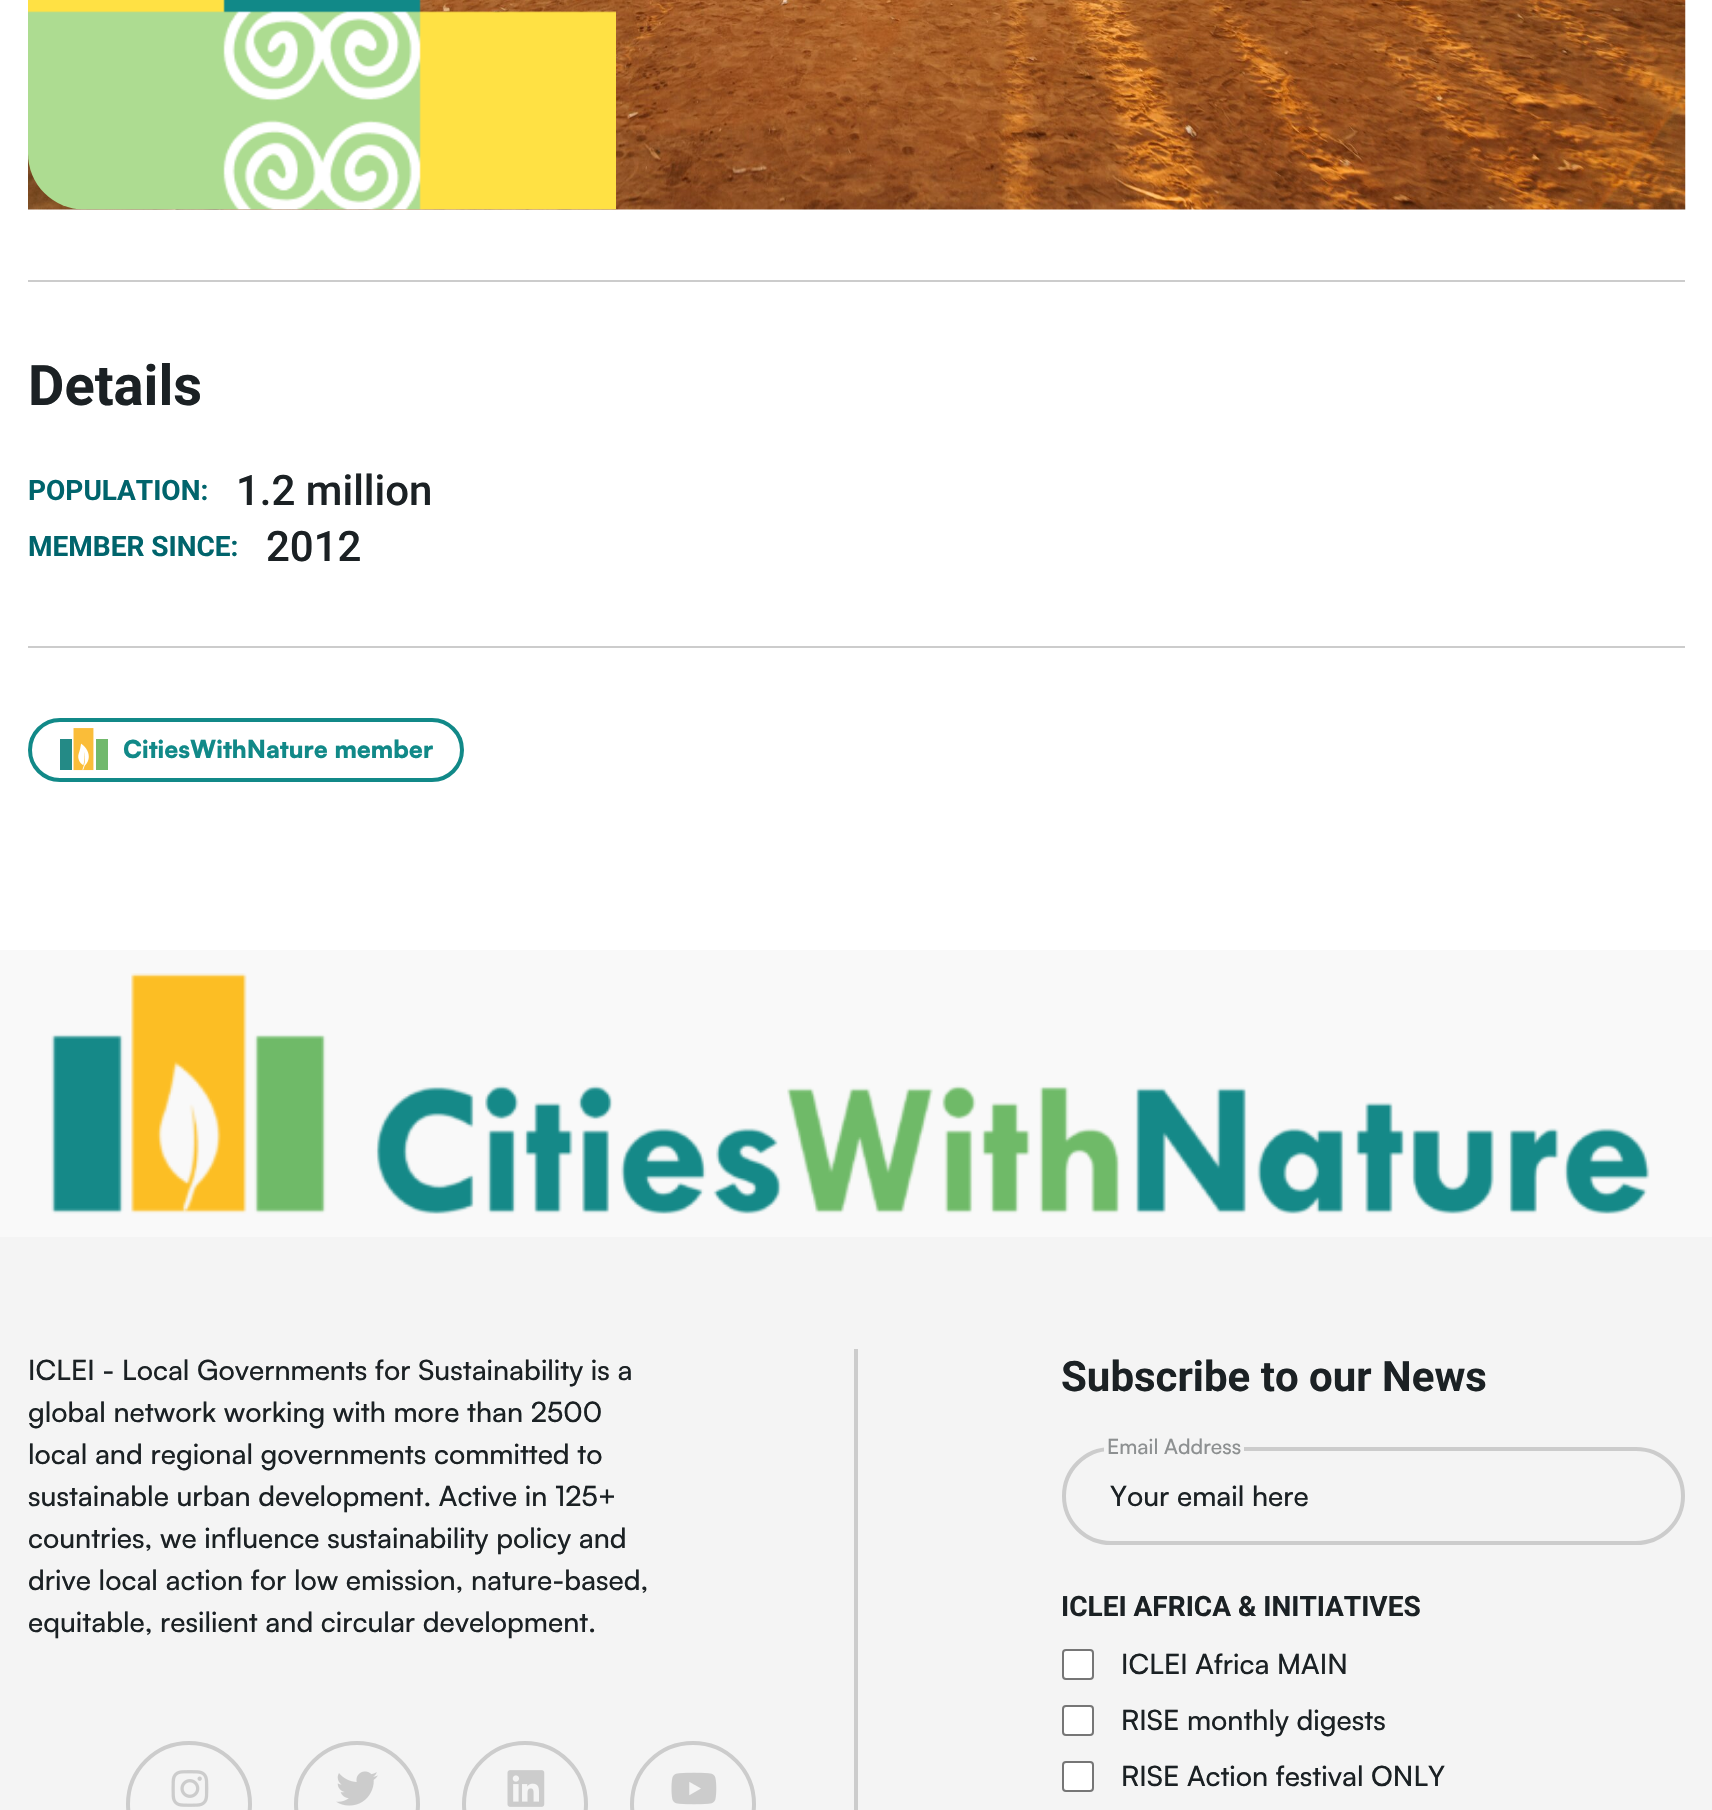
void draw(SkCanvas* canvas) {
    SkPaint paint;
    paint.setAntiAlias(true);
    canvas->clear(0xFFF9F9F9);
    paint.setColor(0xFFFFFFFF);
    canvas->drawRect(SkRect::MakeXYWH(0, 0, 1712, 950), paint);
    canvas->drawImageRect(SkImages::DeferredFromEncodedData(SkData::MakeFromFileName("img1.png")), SkRect::MakeXYWH(28, 0, 1658, 210), SkSamplingOptions());
    canvas->drawImageRect(SkImages::DeferredFromEncodedData(SkData::MakeFromFileName("img2.png")), SkRect::MakeXYWH(28, 0, 588, 210), SkSamplingOptions());
    paint.setColor(0xFFCCCCCC);
    canvas->drawRect(SkRect::MakeXYWH(28, 280, 1657, 2), paint);
    SkFont font1(fontMgr->matchFamilyStyle("Roboto", SkFontStyle::Bold()), 56);
    font1.setSubpixel(true);
    paint.setColor(0xFF1B2124);
    canvas->drawString("Details", 28, 405, font1, paint);
    SkFont font2(fontMgr->matchFamilyStyle("Roboto", SkFontStyle::Bold()), 28);
    font2.setSubpixel(true);
    paint.setColor(0xFF00646C);
    canvas->drawString("POPULATION:", 28, 500, font2, paint);
    SkFont font3(fontMgr->matchFamilyStyle("Roboto", SkFontStyle(500, SkFontStyle::kNormal_Width, SkFontStyle::kUpright_Slant)), 42);
    font3.setSubpixel(true);
    paint.setColor(0xFF1B2124);
    canvas->drawString("1.2 million", 236, 505, font3, paint);
    paint.setColor(0xFF00646C);
    canvas->drawString("MEMBER SINCE:", 28, 556, font2, paint);
    paint.setColor(0xFF1B2124);
    canvas->drawString("2012", 266, 561, font3, paint);
    paint.setColor(0xFFCCCCCC);
    canvas->drawRect(SkRect::MakeXYWH(28, 646, 1657, 2), paint);
    paint.setStyle(SkPaint::kStroke_Style);
    paint.setStrokeWidth(4);
    paint.setColor(0xFF118988);
    canvas->drawRoundRect(SkRect::MakeXYWH(30, 720, 432, 60), 30, 30, paint);
    canvas->drawImageRect(SkImages::DeferredFromEncodedData(SkData::MakeFromFileName("img3.png")), SkRect::MakeXYWH(60, 728, 48, 43), SkSamplingOptions());
    SkFont font4(fontMgr->matchFamilyStyle("Satoshi", SkFontStyle(900, SkFontStyle::kNormal_Width, SkFontStyle::kUpright_Slant)), 24.5f);
    font4.setSubpixel(true);
    paint.setStyle(SkPaint::kFill_Style);
    canvas->drawString("CitiesWithNature member", 123, 758, font4, paint);
    canvas->drawImageRect(SkImages::DeferredFromEncodedData(SkData::MakeFromFileName("img4.png")), SkRect::MakeXYWH(51, 973, 1599, 241), SkSamplingOptions());
    paint.setColor(0xFFF4F4F4);
    canvas->drawRect(SkRect::MakeXYWH(0, 1237, 1712, 573), paint);
    paint.setColor(0xFFCCCCCC);
    canvas->drawRect(SkRect::MakeXYWH(854, 1349, 4, 461), paint);
    SkFont font5(fontMgr->matchFamilyStyle("Satoshi", SkFontStyle(500, SkFontStyle::kNormal_Width, SkFontStyle::kUpright_Slant)), 28);
    font5.setSubpixel(true);
    paint.setColor(0xFF1B2124);
    canvas->drawString("ICLEI - Local Governments for Sustainability is a", 28, 1380, font5, paint);
    canvas->drawString("global network working with more than 2500", 28, 1422, font5, paint);
    canvas->drawString("local and regional governments committed to", 28, 1464, font5, paint);
    canvas->drawString("sustainable urban development. Active in 125+", 28, 1506, font5, paint);
    canvas->drawString("countries, we influence sustainability policy and", 28, 1548, font5, paint);
    canvas->drawString("drive local action for low emission, nature-based,", 28, 1590, font5, paint);
    canvas->drawString("equitable, resilient and circular development.", 28, 1632, font5, paint);
    paint.setStyle(SkPaint::kStroke_Style);
    paint.setColor(0xFFCCCCCC);
    canvas->drawCircle(189, 1804, 61, paint);
    canvas->drawImageRect(SkImages::DeferredFromEncodedData(SkData::MakeFromFileName("img5.png")), SkRect::MakeXYWH(171, 1770, 38, 37), SkSamplingOptions());
    canvas->drawCircle(357, 1804, 61, paint);
    canvas->drawImageRect(SkImages::DeferredFromEncodedData(SkData::MakeFromFileName("img6.png")), SkRect::MakeXYWH(336, 1771, 42, 35), SkSamplingOptions());
    canvas->drawCircle(525, 1804, 61, paint);
    canvas->drawImageRect(SkImages::DeferredFromEncodedData(SkData::MakeFromFileName("img7.png")), SkRect::MakeXYWH(507, 1770, 38, 37), SkSamplingOptions());
    canvas->drawCircle(693, 1804, 61, paint);
    canvas->drawImageRect(SkImages::DeferredFromEncodedData(SkData::MakeFromFileName("img8.png")), SkRect::MakeXYWH(671, 1772, 46, 33), SkSamplingOptions());
    SkFont font6(fontMgr->matchFamilyStyle("Roboto", SkFontStyle::Bold()), 42);
    font6.setSubpixel(true);
    paint.setStyle(SkPaint::kFill_Style);
    paint.setColor(0xFF1B2124);
    canvas->drawString("Subscribe to our News", 1061, 1391, font6, paint);
    paint.setStyle(SkPaint::kStroke_Style);
    paint.setColor(0xFFCCCCCC);
    canvas->drawRoundRect(SkRect::MakeXYWH(1064, 1449, 619, 94), 47, 47, paint);
    paint.setStyle(SkPaint::kFill_Style);
    paint.setColor(0xFFF4F4F4);
    canvas->drawRect(SkRect::MakeXYWH(1104, 1447, 140, 5), paint);
    SkFont font7(fontMgr->matchFamilyStyle("Satoshi", SkFontStyle(500, SkFontStyle::kNormal_Width, SkFontStyle::kUpright_Slant)), 21);
    font7.setSubpixel(true);
    paint.setColor(0xFF8D9091);
    canvas->drawString("Email Address", 1107, 1454, font7, paint);
    paint.setColor(0xFF1B2124);
    canvas->drawString("Your email here", 1110, 1506, font5, paint);
    canvas->drawString("ICLEI AFRICA & INITIATIVES", 1061, 1616, font2, paint);
    paint.setColor(0xFFFFFFFF);
    canvas->drawRoundRect(SkRect::MakeXYWH(1063, 1650, 30, 29), 3, 3, paint);
    paint.setStyle(SkPaint::kStroke_Style);
    paint.setStrokeWidth(2);
    paint.setColor(0xFF767676);
    canvas->drawRoundRect(SkRect::MakeXYWH(1063, 1650, 30, 29), 3, 3, paint);
    paint.setStyle(SkPaint::kFill_Style);
    paint.setColor(0xFF1B2124);
    canvas->drawString("ICLEI Africa MAIN", 1121, 1674, font5, paint);
    paint.setColor(0xFFFFFFFF);
    canvas->drawRoundRect(SkRect::MakeXYWH(1063, 1706, 30, 29), 3, 3, paint);
    paint.setStyle(SkPaint::kStroke_Style);
    paint.setColor(0xFF767676);
    canvas->drawRoundRect(SkRect::MakeXYWH(1063, 1706, 30, 29), 3, 3, paint);
    paint.setStyle(SkPaint::kFill_Style);
    paint.setColor(0xFF1B2124);
    canvas->drawString("RISE monthly digests", 1121, 1730, font5, paint);
    paint.setColor(0xFFFFFFFF);
    canvas->drawRoundRect(SkRect::MakeXYWH(1063, 1762, 30, 29), 3, 3, paint);
    paint.setStyle(SkPaint::kStroke_Style);
    paint.setColor(0xFF767676);
    canvas->drawRoundRect(SkRect::MakeXYWH(1063, 1762, 30, 29), 3, 3, paint);
    paint.setStyle(SkPaint::kFill_Style);
    paint.setColor(0xFF1B2124);
    canvas->drawString("RISE Action festival ONLY", 1121, 1786, font5, paint);
}
